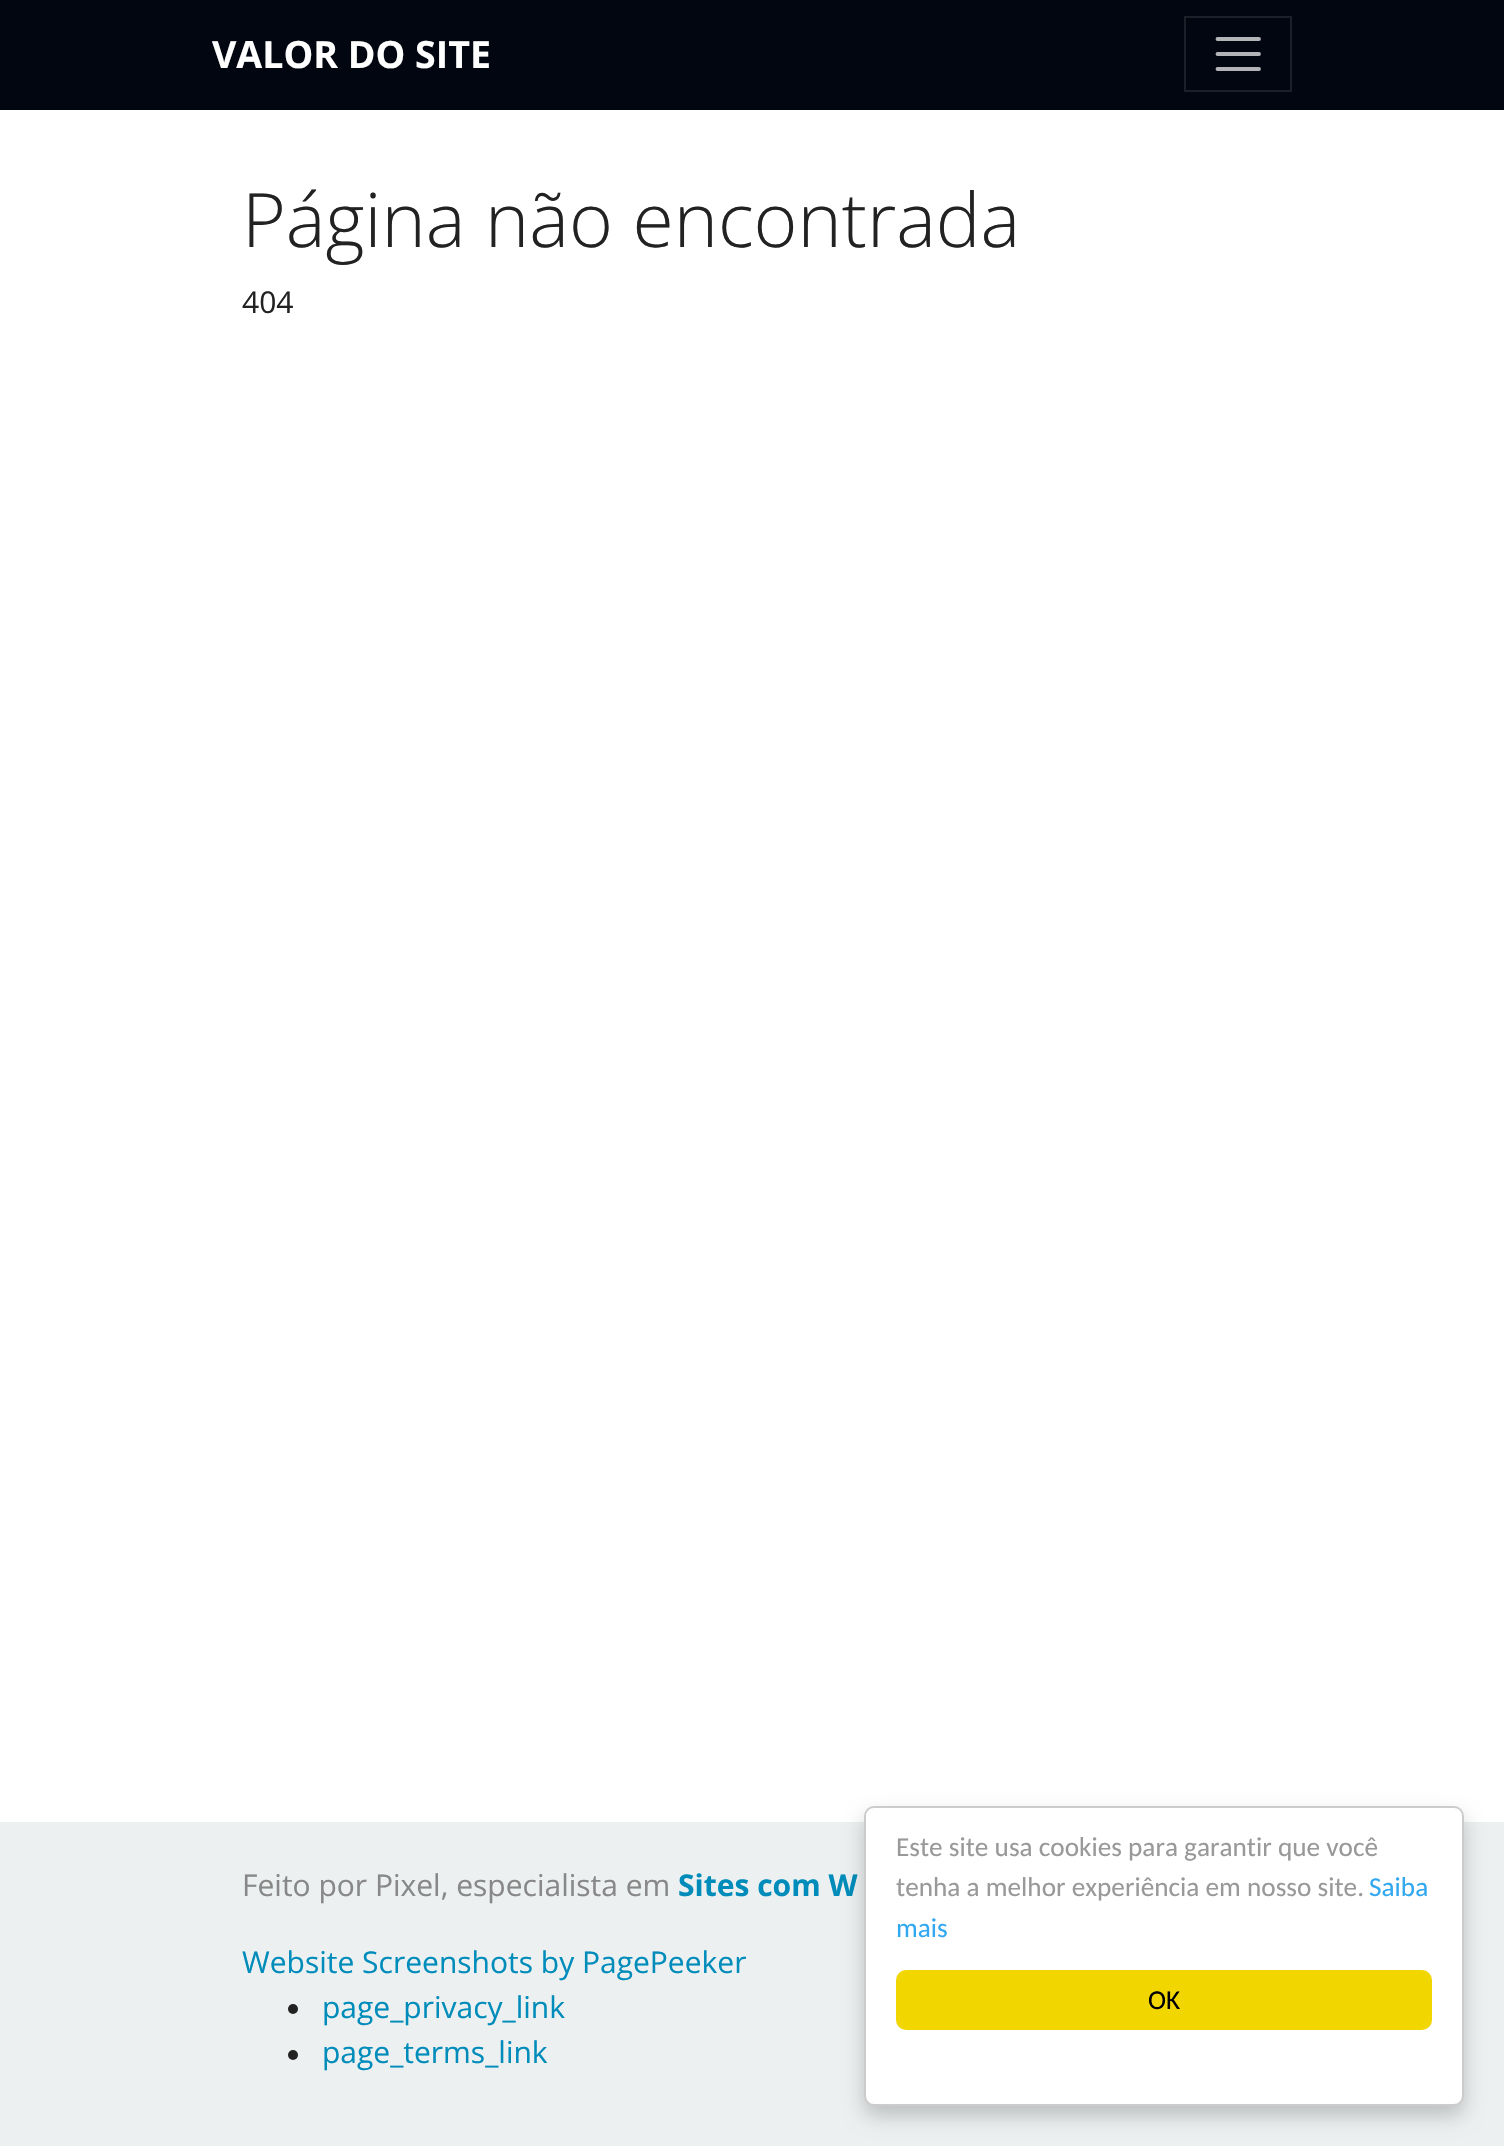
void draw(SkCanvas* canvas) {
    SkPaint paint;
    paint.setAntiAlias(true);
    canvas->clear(0xFFFFFFFF);
    paint.setColor(0xFF010610);
    canvas->drawRect(SkRect::MakeXYWH(0, 0, 1504, 110), paint);
    SkFont font1(fontMgr->matchFamilyStyle("Open Sans", SkFontStyle::Bold()), 37.5f);
    font1.setSubpixel(true);
    paint.setColor(0xFFFFFFFF);
    canvas->drawString("VALOR DO SITE", 212, 68, font1, paint);
    paint.setStyle(SkPaint::kStroke_Style);
    paint.setStrokeWidth(2);
    paint.setColor(0xFF1A1F28);
    canvas->drawRect(SkRect::MakeXYWH(1185, 17, 106, 74), paint);
    paint.setStrokeWidth(3.8f);
    paint.setStrokeCap(SkPaint::kRound_Cap);
    paint.setColor(0xFFB3B4B7);
    canvas->drawPath(SkPathBuilder().moveTo(1217.5f, 39).lineTo(1259, 39).moveTo(1217.5f, 54).lineTo(1259, 54).moveTo(1217.5f, 69).lineTo(1259, 69).detach(), paint);
    SkFont font2(fontMgr->matchFamilyStyle("Open Sans", SkFontStyle(300, SkFontStyle::kNormal_Width, SkFontStyle::kUpright_Slant)), 75);
    font2.setSubpixel(true);
    paint.setStyle(SkPaint::kFill_Style);
    paint.setColor(0xFF222222);
    canvas->drawString("Página não encontrada", 242, 247, font2, paint);
    SkFont font3(fontMgr->matchFamilyStyle("Open Sans", SkFontStyle::Normal()), 30);
    font3.setSubpixel(true);
    canvas->drawString("404", 242, 313, font3, paint);
    paint.setColor(0xFFECF0F1);
    canvas->drawRect(SkRect::MakeXYWH(0, 1822, 1504, 324), paint);
    paint.setColor(0xFF888888);
    canvas->drawString("Feito por Pixel, especialista em", 242, 1896, font3, paint);
    SkFont font4(fontMgr->matchFamilyStyle("Open Sans", SkFontStyle::Bold()), 30);
    font4.setSubpixel(true);
    paint.setColor(0xFF008CBA);
    canvas->drawString("Sites com W", 678, 1896, font4, paint);
    canvas->drawString("Website Screenshots by PagePeeker", 242, 1973, font3, paint);
    paint.setColor(0xFF222222);
    canvas->drawCircle(293, 2009, 5, paint);
    paint.setColor(0xFF008CBA);
    canvas->drawString("page_privacy_link", 322, 2018, font3, paint);
    paint.setColor(0xFF222222);
    canvas->drawCircle(293, 2055, 5, paint);
    paint.setColor(0xFF008CBA);
    canvas->drawString("page_terms_link", 322, 2063, font3, paint);
    paint.setColor(0x33000000);
    paint.setMaskFilter(SkMaskFilter::MakeBlur(kNormal_SkBlurStyle, 10));
    canvas->drawRoundRect(SkRect::MakeXYWH(864, 1816, 600, 300), 10, 10, paint);
    paint.setMaskFilter(nullptr);
    paint.setColor(0xFFFFFFFF);
    canvas->drawRoundRect(SkRect::MakeXYWH(865, 1807, 598, 298), 9, 9, paint);
    paint.setStyle(SkPaint::kStroke_Style);
    paint.setStrokeWidth(2);
    paint.setStrokeCap(SkPaint::kButt_Cap);
    paint.setColor(0xFFCCCCCC);
    canvas->drawRoundRect(SkRect::MakeXYWH(865, 1807, 598, 298), 9, 9, paint);
    SkFont font5(fontMgr->matchFamilyStyle("Carlito", SkFontStyle::Normal()), 27.25f);
    font5.setSubpixel(true);
    paint.setStyle(SkPaint::kFill_Style);
    paint.setColor(0xFF999999);
    canvas->drawString("Este site usa cookies para garantir que você", 896, 1856, font5, paint);
    canvas->drawString("tenha a melhor experiência em nosso site.", 896, 1896, font5, paint);
    paint.setColor(0xFF31A8F0);
    canvas->drawString("Saiba", 1369, 1896, font5, paint);
    canvas->drawString("mais", 896, 1937, font5, paint);
    paint.setColor(0xFFF1D600);
    canvas->drawRoundRect(SkRect::MakeXYWH(896, 1970, 536, 60), 10, 10, paint);
    paint.setColor(0xFF000000);
    canvas->drawString("OK", 1148, 2009, font5, paint);
}
